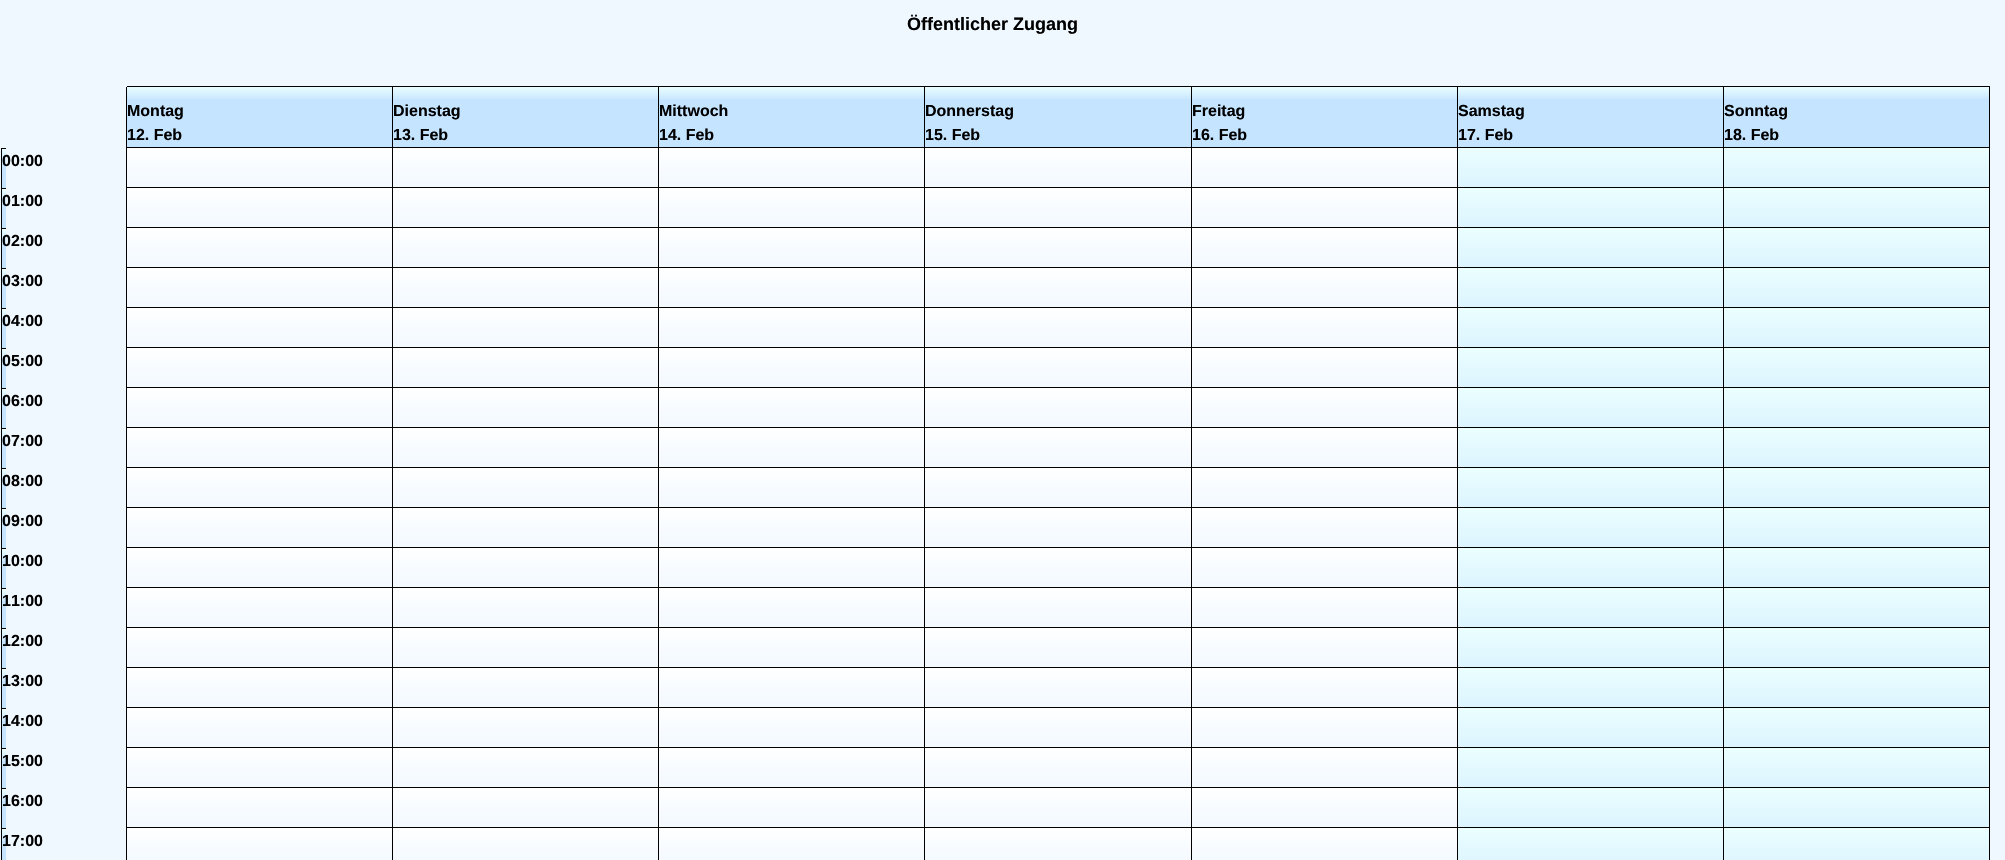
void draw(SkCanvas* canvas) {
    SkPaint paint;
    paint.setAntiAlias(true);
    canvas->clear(0xFFF0F8FF);
    SkFont font1(fontMgr->matchFamilyStyle("Liberation Sans", SkFontStyle::Bold()), 18);
    font1.setSubpixel(true);
    paint.setColor(0xFF000000);
    canvas->drawString("Öffentlicher Zugang", 907, 30, font1, paint);
    canvas->drawRect(SkRect::MakeXYWH(1989, 86, 1, 774), paint);
    canvas->drawRect(SkRect::MakeXYWH(1723, 86, 267, 1), paint);
    canvas->drawRect(SkRect::MakeXYWH(1723, 147, 267, 1), paint);
    canvas->drawRect(SkRect::MakeXYWH(1723, 187, 267, 1), paint);
    canvas->drawRect(SkRect::MakeXYWH(1723, 227, 267, 1), paint);
    canvas->drawRect(SkRect::MakeXYWH(1723, 267, 267, 1), paint);
    canvas->drawRect(SkRect::MakeXYWH(1723, 307, 267, 1), paint);
    canvas->drawRect(SkRect::MakeXYWH(1723, 347, 267, 1), paint);
    canvas->drawRect(SkRect::MakeXYWH(1723, 387, 267, 1), paint);
    canvas->drawRect(SkRect::MakeXYWH(1723, 427, 267, 1), paint);
    canvas->drawRect(SkRect::MakeXYWH(1723, 467, 267, 1), paint);
    canvas->drawRect(SkRect::MakeXYWH(1723, 507, 267, 1), paint);
    canvas->drawRect(SkRect::MakeXYWH(1723, 547, 267, 1), paint);
    canvas->drawRect(SkRect::MakeXYWH(1723, 587, 267, 1), paint);
    canvas->drawRect(SkRect::MakeXYWH(1723, 627, 267, 1), paint);
    canvas->drawRect(SkRect::MakeXYWH(1723, 667, 267, 1), paint);
    canvas->drawRect(SkRect::MakeXYWH(1723, 707, 267, 1), paint);
    canvas->drawRect(SkRect::MakeXYWH(1723, 747, 267, 1), paint);
    canvas->drawRect(SkRect::MakeXYWH(1723, 787, 267, 1), paint);
    canvas->drawRect(SkRect::MakeXYWH(1723, 827, 267, 1), paint);
    canvas->drawRect(SkRect::MakeXYWH(1723, 827, 1, 33), paint);
    canvas->drawRect(SkRect::MakeXYWH(1457, 827, 267, 1), paint);
    canvas->drawRect(SkRect::MakeXYWH(1723, 787, 1, 41), paint);
    canvas->drawRect(SkRect::MakeXYWH(1457, 787, 267, 1), paint);
    canvas->drawRect(SkRect::MakeXYWH(1723, 747, 1, 41), paint);
    canvas->drawRect(SkRect::MakeXYWH(1457, 747, 267, 1), paint);
    canvas->drawRect(SkRect::MakeXYWH(1723, 707, 1, 41), paint);
    canvas->drawRect(SkRect::MakeXYWH(1457, 707, 267, 1), paint);
    canvas->drawRect(SkRect::MakeXYWH(1723, 667, 1, 41), paint);
    canvas->drawRect(SkRect::MakeXYWH(1457, 667, 267, 1), paint);
    canvas->drawRect(SkRect::MakeXYWH(1723, 627, 1, 41), paint);
    canvas->drawRect(SkRect::MakeXYWH(1457, 627, 267, 1), paint);
    canvas->drawRect(SkRect::MakeXYWH(1723, 587, 1, 41), paint);
    canvas->drawRect(SkRect::MakeXYWH(1457, 587, 267, 1), paint);
    canvas->drawRect(SkRect::MakeXYWH(1723, 547, 1, 41), paint);
    canvas->drawRect(SkRect::MakeXYWH(1457, 547, 267, 1), paint);
    canvas->drawRect(SkRect::MakeXYWH(1723, 507, 1, 41), paint);
    canvas->drawRect(SkRect::MakeXYWH(1457, 507, 267, 1), paint);
    canvas->drawRect(SkRect::MakeXYWH(1723, 467, 1, 41), paint);
    canvas->drawRect(SkRect::MakeXYWH(1457, 467, 267, 1), paint);
    canvas->drawRect(SkRect::MakeXYWH(1723, 427, 1, 41), paint);
    canvas->drawRect(SkRect::MakeXYWH(1457, 427, 267, 1), paint);
    canvas->drawRect(SkRect::MakeXYWH(1723, 387, 1, 41), paint);
    canvas->drawRect(SkRect::MakeXYWH(1457, 387, 267, 1), paint);
    canvas->drawRect(SkRect::MakeXYWH(1723, 347, 1, 41), paint);
    canvas->drawRect(SkRect::MakeXYWH(1457, 347, 267, 1), paint);
    canvas->drawRect(SkRect::MakeXYWH(1723, 307, 1, 41), paint);
    canvas->drawRect(SkRect::MakeXYWH(1457, 307, 267, 1), paint);
    canvas->drawRect(SkRect::MakeXYWH(1723, 267, 1, 41), paint);
    canvas->drawRect(SkRect::MakeXYWH(1457, 267, 267, 1), paint);
    canvas->drawRect(SkRect::MakeXYWH(1723, 227, 1, 41), paint);
    canvas->drawRect(SkRect::MakeXYWH(1457, 227, 267, 1), paint);
    canvas->drawRect(SkRect::MakeXYWH(1723, 187, 1, 41), paint);
    canvas->drawRect(SkRect::MakeXYWH(1457, 187, 267, 1), paint);
    canvas->drawRect(SkRect::MakeXYWH(1723, 147, 1, 41), paint);
    canvas->drawRect(SkRect::MakeXYWH(1457, 147, 267, 1), paint);
    canvas->drawRect(SkRect::MakeXYWH(1723, 86, 1, 62), paint);
    canvas->drawRect(SkRect::MakeXYWH(1457, 86, 267, 1), paint);
    canvas->drawRect(SkRect::MakeXYWH(1457, 827, 1, 33), paint);
    canvas->drawRect(SkRect::MakeXYWH(1191, 827, 267, 1), paint);
    canvas->drawRect(SkRect::MakeXYWH(1457, 787, 1, 41), paint);
    canvas->drawRect(SkRect::MakeXYWH(1191, 787, 267, 1), paint);
    canvas->drawRect(SkRect::MakeXYWH(1457, 747, 1, 41), paint);
    canvas->drawRect(SkRect::MakeXYWH(1191, 747, 267, 1), paint);
    canvas->drawRect(SkRect::MakeXYWH(1457, 707, 1, 41), paint);
    canvas->drawRect(SkRect::MakeXYWH(1191, 707, 267, 1), paint);
    canvas->drawRect(SkRect::MakeXYWH(1457, 667, 1, 41), paint);
    canvas->drawRect(SkRect::MakeXYWH(1191, 667, 267, 1), paint);
    canvas->drawRect(SkRect::MakeXYWH(1457, 627, 1, 41), paint);
    canvas->drawRect(SkRect::MakeXYWH(1191, 627, 267, 1), paint);
    canvas->drawRect(SkRect::MakeXYWH(1457, 587, 1, 41), paint);
    canvas->drawRect(SkRect::MakeXYWH(1191, 587, 267, 1), paint);
    canvas->drawRect(SkRect::MakeXYWH(1457, 547, 1, 41), paint);
    canvas->drawRect(SkRect::MakeXYWH(1191, 547, 267, 1), paint);
    canvas->drawRect(SkRect::MakeXYWH(1457, 507, 1, 41), paint);
    canvas->drawRect(SkRect::MakeXYWH(1191, 507, 267, 1), paint);
    canvas->drawRect(SkRect::MakeXYWH(1457, 467, 1, 41), paint);
    canvas->drawRect(SkRect::MakeXYWH(1191, 467, 267, 1), paint);
    canvas->drawRect(SkRect::MakeXYWH(1457, 427, 1, 41), paint);
    canvas->drawRect(SkRect::MakeXYWH(1191, 427, 267, 1), paint);
    canvas->drawRect(SkRect::MakeXYWH(1457, 387, 1, 41), paint);
    canvas->drawRect(SkRect::MakeXYWH(1191, 387, 267, 1), paint);
    canvas->drawRect(SkRect::MakeXYWH(1457, 347, 1, 41), paint);
    canvas->drawRect(SkRect::MakeXYWH(1191, 347, 267, 1), paint);
    canvas->drawRect(SkRect::MakeXYWH(1457, 307, 1, 41), paint);
    canvas->drawRect(SkRect::MakeXYWH(1191, 307, 267, 1), paint);
    canvas->drawRect(SkRect::MakeXYWH(1457, 267, 1, 41), paint);
    canvas->drawRect(SkRect::MakeXYWH(1191, 267, 267, 1), paint);
    canvas->drawRect(SkRect::MakeXYWH(1457, 227, 1, 41), paint);
    canvas->drawRect(SkRect::MakeXYWH(1191, 227, 267, 1), paint);
    canvas->drawRect(SkRect::MakeXYWH(1457, 187, 1, 41), paint);
    canvas->drawRect(SkRect::MakeXYWH(1191, 187, 267, 1), paint);
    canvas->drawRect(SkRect::MakeXYWH(1457, 147, 1, 41), paint);
    canvas->drawRect(SkRect::MakeXYWH(1191, 147, 267, 1), paint);
    canvas->drawRect(SkRect::MakeXYWH(1457, 86, 1, 62), paint);
    canvas->drawRect(SkRect::MakeXYWH(1191, 86, 267, 1), paint);
    canvas->drawRect(SkRect::MakeXYWH(1191, 827, 1, 33), paint);
    canvas->drawRect(SkRect::MakeXYWH(924, 827, 268, 1), paint);
    canvas->drawRect(SkRect::MakeXYWH(1191, 787, 1, 41), paint);
    canvas->drawRect(SkRect::MakeXYWH(924, 787, 268, 1), paint);
    canvas->drawRect(SkRect::MakeXYWH(1191, 747, 1, 41), paint);
    canvas->drawRect(SkRect::MakeXYWH(924, 747, 268, 1), paint);
    canvas->drawRect(SkRect::MakeXYWH(1191, 707, 1, 41), paint);
    canvas->drawRect(SkRect::MakeXYWH(924, 707, 268, 1), paint);
    canvas->drawRect(SkRect::MakeXYWH(1191, 667, 1, 41), paint);
    canvas->drawRect(SkRect::MakeXYWH(924, 667, 268, 1), paint);
    canvas->drawRect(SkRect::MakeXYWH(1191, 627, 1, 41), paint);
    canvas->drawRect(SkRect::MakeXYWH(924, 627, 268, 1), paint);
    canvas->drawRect(SkRect::MakeXYWH(1191, 587, 1, 41), paint);
    canvas->drawRect(SkRect::MakeXYWH(924, 587, 268, 1), paint);
    canvas->drawRect(SkRect::MakeXYWH(1191, 547, 1, 41), paint);
    canvas->drawRect(SkRect::MakeXYWH(924, 547, 268, 1), paint);
    canvas->drawRect(SkRect::MakeXYWH(1191, 507, 1, 41), paint);
    canvas->drawRect(SkRect::MakeXYWH(924, 507, 268, 1), paint);
    canvas->drawRect(SkRect::MakeXYWH(1191, 467, 1, 41), paint);
    canvas->drawRect(SkRect::MakeXYWH(924, 467, 268, 1), paint);
    canvas->drawRect(SkRect::MakeXYWH(1191, 427, 1, 41), paint);
    canvas->drawRect(SkRect::MakeXYWH(924, 427, 268, 1), paint);
    canvas->drawRect(SkRect::MakeXYWH(1191, 387, 1, 41), paint);
    canvas->drawRect(SkRect::MakeXYWH(924, 387, 268, 1), paint);
    canvas->drawRect(SkRect::MakeXYWH(1191, 347, 1, 41), paint);
    canvas->drawRect(SkRect::MakeXYWH(924, 347, 268, 1), paint);
    canvas->drawRect(SkRect::MakeXYWH(1191, 307, 1, 41), paint);
    canvas->drawRect(SkRect::MakeXYWH(924, 307, 268, 1), paint);
    canvas->drawRect(SkRect::MakeXYWH(1191, 267, 1, 41), paint);
    canvas->drawRect(SkRect::MakeXYWH(924, 267, 268, 1), paint);
    canvas->drawRect(SkRect::MakeXYWH(1191, 227, 1, 41), paint);
    canvas->drawRect(SkRect::MakeXYWH(924, 227, 268, 1), paint);
    canvas->drawRect(SkRect::MakeXYWH(1191, 187, 1, 41), paint);
    canvas->drawRect(SkRect::MakeXYWH(924, 187, 268, 1), paint);
    canvas->drawRect(SkRect::MakeXYWH(1191, 147, 1, 41), paint);
    canvas->drawRect(SkRect::MakeXYWH(924, 147, 268, 1), paint);
    canvas->drawRect(SkRect::MakeXYWH(1191, 86, 1, 62), paint);
    canvas->drawRect(SkRect::MakeXYWH(924, 86, 268, 1), paint);
    canvas->drawRect(SkRect::MakeXYWH(924, 827, 1, 33), paint);
    canvas->drawRect(SkRect::MakeXYWH(658, 827, 267, 1), paint);
    canvas->drawRect(SkRect::MakeXYWH(924, 787, 1, 41), paint);
    canvas->drawRect(SkRect::MakeXYWH(658, 787, 267, 1), paint);
    canvas->drawRect(SkRect::MakeXYWH(924, 747, 1, 41), paint);
    canvas->drawRect(SkRect::MakeXYWH(658, 747, 267, 1), paint);
    canvas->drawRect(SkRect::MakeXYWH(924, 707, 1, 41), paint);
    canvas->drawRect(SkRect::MakeXYWH(658, 707, 267, 1), paint);
    canvas->drawRect(SkRect::MakeXYWH(924, 667, 1, 41), paint);
    canvas->drawRect(SkRect::MakeXYWH(658, 667, 267, 1), paint);
    canvas->drawRect(SkRect::MakeXYWH(924, 627, 1, 41), paint);
    canvas->drawRect(SkRect::MakeXYWH(658, 627, 267, 1), paint);
    canvas->drawRect(SkRect::MakeXYWH(924, 587, 1, 41), paint);
    canvas->drawRect(SkRect::MakeXYWH(658, 587, 267, 1), paint);
    canvas->drawRect(SkRect::MakeXYWH(924, 547, 1, 41), paint);
    canvas->drawRect(SkRect::MakeXYWH(658, 547, 267, 1), paint);
    canvas->drawRect(SkRect::MakeXYWH(924, 507, 1, 41), paint);
    canvas->drawRect(SkRect::MakeXYWH(658, 507, 267, 1), paint);
    canvas->drawRect(SkRect::MakeXYWH(924, 467, 1, 41), paint);
    canvas->drawRect(SkRect::MakeXYWH(658, 467, 267, 1), paint);
    canvas->drawRect(SkRect::MakeXYWH(924, 427, 1, 41), paint);
    canvas->drawRect(SkRect::MakeXYWH(658, 427, 267, 1), paint);
    canvas->drawRect(SkRect::MakeXYWH(924, 387, 1, 41), paint);
    canvas->drawRect(SkRect::MakeXYWH(658, 387, 267, 1), paint);
    canvas->drawRect(SkRect::MakeXYWH(924, 347, 1, 41), paint);
    canvas->drawRect(SkRect::MakeXYWH(658, 347, 267, 1), paint);
    canvas->drawRect(SkRect::MakeXYWH(924, 307, 1, 41), paint);
    canvas->drawRect(SkRect::MakeXYWH(658, 307, 267, 1), paint);
    canvas->drawRect(SkRect::MakeXYWH(924, 267, 1, 41), paint);
    canvas->drawRect(SkRect::MakeXYWH(658, 267, 267, 1), paint);
    canvas->drawRect(SkRect::MakeXYWH(924, 227, 1, 41), paint);
    canvas->drawRect(SkRect::MakeXYWH(658, 227, 267, 1), paint);
    canvas->drawRect(SkRect::MakeXYWH(924, 187, 1, 41), paint);
    canvas->drawRect(SkRect::MakeXYWH(658, 187, 267, 1), paint);
    canvas->drawRect(SkRect::MakeXYWH(924, 147, 1, 41), paint);
    canvas->drawRect(SkRect::MakeXYWH(658, 147, 267, 1), paint);
    canvas->drawRect(SkRect::MakeXYWH(924, 86, 1, 62), paint);
    canvas->drawRect(SkRect::MakeXYWH(658, 86, 267, 1), paint);
    canvas->drawRect(SkRect::MakeXYWH(658, 827, 1, 33), paint);
    canvas->drawRect(SkRect::MakeXYWH(392, 827, 267, 1), paint);
    canvas->drawRect(SkRect::MakeXYWH(658, 787, 1, 41), paint);
    canvas->drawRect(SkRect::MakeXYWH(392, 787, 267, 1), paint);
    canvas->drawRect(SkRect::MakeXYWH(658, 747, 1, 41), paint);
    canvas->drawRect(SkRect::MakeXYWH(392, 747, 267, 1), paint);
    canvas->drawRect(SkRect::MakeXYWH(658, 707, 1, 41), paint);
    canvas->drawRect(SkRect::MakeXYWH(392, 707, 267, 1), paint);
    canvas->drawRect(SkRect::MakeXYWH(658, 667, 1, 41), paint);
    canvas->drawRect(SkRect::MakeXYWH(392, 667, 267, 1), paint);
    canvas->drawRect(SkRect::MakeXYWH(658, 627, 1, 41), paint);
    canvas->drawRect(SkRect::MakeXYWH(392, 627, 267, 1), paint);
    canvas->drawRect(SkRect::MakeXYWH(658, 587, 1, 41), paint);
    canvas->drawRect(SkRect::MakeXYWH(392, 587, 267, 1), paint);
    canvas->drawRect(SkRect::MakeXYWH(658, 547, 1, 41), paint);
    canvas->drawRect(SkRect::MakeXYWH(392, 547, 267, 1), paint);
    canvas->drawRect(SkRect::MakeXYWH(658, 507, 1, 41), paint);
    canvas->drawRect(SkRect::MakeXYWH(392, 507, 267, 1), paint);
    canvas->drawRect(SkRect::MakeXYWH(658, 467, 1, 41), paint);
    canvas->drawRect(SkRect::MakeXYWH(392, 467, 267, 1), paint);
    canvas->drawRect(SkRect::MakeXYWH(658, 427, 1, 41), paint);
    canvas->drawRect(SkRect::MakeXYWH(392, 427, 267, 1), paint);
    canvas->drawRect(SkRect::MakeXYWH(658, 387, 1, 41), paint);
    canvas->drawRect(SkRect::MakeXYWH(392, 387, 267, 1), paint);
    canvas->drawRect(SkRect::MakeXYWH(658, 347, 1, 41), paint);
    canvas->drawRect(SkRect::MakeXYWH(392, 347, 267, 1), paint);
    canvas->drawRect(SkRect::MakeXYWH(658, 307, 1, 41), paint);
    canvas->drawRect(SkRect::MakeXYWH(392, 307, 267, 1), paint);
    canvas->drawRect(SkRect::MakeXYWH(658, 267, 1, 41), paint);
    canvas->drawRect(SkRect::MakeXYWH(392, 267, 267, 1), paint);
    canvas->drawRect(SkRect::MakeXYWH(658, 227, 1, 41), paint);
    canvas->drawRect(SkRect::MakeXYWH(392, 227, 267, 1), paint);
    canvas->drawRect(SkRect::MakeXYWH(658, 187, 1, 41), paint);
    canvas->drawRect(SkRect::MakeXYWH(392, 187, 267, 1), paint);
    canvas->drawRect(SkRect::MakeXYWH(658, 147, 1, 41), paint);
    canvas->drawRect(SkRect::MakeXYWH(392, 147, 267, 1), paint);
    canvas->drawRect(SkRect::MakeXYWH(658, 86, 1, 62), paint);
    canvas->drawRect(SkRect::MakeXYWH(392, 86, 267, 1), paint);
    canvas->drawRect(SkRect::MakeXYWH(392, 827, 1, 33), paint);
    canvas->drawRect(SkRect::MakeXYWH(126, 827, 267, 1), paint);
    canvas->drawRect(SkRect::MakeXYWH(392, 787, 1, 41), paint);
    canvas->drawRect(SkRect::MakeXYWH(126, 787, 267, 1), paint);
    canvas->drawRect(SkRect::MakeXYWH(392, 747, 1, 41), paint);
    canvas->drawRect(SkRect::MakeXYWH(126, 747, 267, 1), paint);
    canvas->drawRect(SkRect::MakeXYWH(392, 707, 1, 41), paint);
    canvas->drawRect(SkRect::MakeXYWH(126, 707, 267, 1), paint);
    canvas->drawRect(SkRect::MakeXYWH(392, 667, 1, 41), paint);
    canvas->drawRect(SkRect::MakeXYWH(126, 667, 267, 1), paint);
    canvas->drawRect(SkRect::MakeXYWH(392, 627, 1, 41), paint);
    canvas->drawRect(SkRect::MakeXYWH(126, 627, 267, 1), paint);
    canvas->drawRect(SkRect::MakeXYWH(392, 587, 1, 41), paint);
    canvas->drawRect(SkRect::MakeXYWH(126, 587, 267, 1), paint);
    canvas->drawRect(SkRect::MakeXYWH(392, 547, 1, 41), paint);
    canvas->drawRect(SkRect::MakeXYWH(126, 547, 267, 1), paint);
    canvas->drawRect(SkRect::MakeXYWH(392, 507, 1, 41), paint);
    canvas->drawRect(SkRect::MakeXYWH(126, 507, 267, 1), paint);
    canvas->drawRect(SkRect::MakeXYWH(392, 467, 1, 41), paint);
    canvas->drawRect(SkRect::MakeXYWH(126, 467, 267, 1), paint);
    canvas->drawRect(SkRect::MakeXYWH(392, 427, 1, 41), paint);
    canvas->drawRect(SkRect::MakeXYWH(126, 427, 267, 1), paint);
    canvas->drawRect(SkRect::MakeXYWH(392, 387, 1, 41), paint);
    canvas->drawRect(SkRect::MakeXYWH(126, 387, 267, 1), paint);
    canvas->drawRect(SkRect::MakeXYWH(392, 347, 1, 41), paint);
    canvas->drawRect(SkRect::MakeXYWH(126, 347, 267, 1), paint);
    canvas->drawRect(SkRect::MakeXYWH(392, 307, 1, 41), paint);
    canvas->drawRect(SkRect::MakeXYWH(126, 307, 267, 1), paint);
    canvas->drawRect(SkRect::MakeXYWH(392, 267, 1, 41), paint);
    canvas->drawRect(SkRect::MakeXYWH(126, 267, 267, 1), paint);
    canvas->drawRect(SkRect::MakeXYWH(392, 227, 1, 41), paint);
    canvas->drawRect(SkRect::MakeXYWH(126, 227, 267, 1), paint);
    canvas->drawRect(SkRect::MakeXYWH(392, 187, 1, 41), paint);
    canvas->drawRect(SkRect::MakeXYWH(126, 187, 267, 1), paint);
    canvas->drawRect(SkRect::MakeXYWH(392, 147, 1, 41), paint);
    canvas->drawRect(SkRect::MakeXYWH(126, 147, 267, 1), paint);
    canvas->drawRect(SkRect::MakeXYWH(392, 86, 1, 62), paint);
    canvas->drawRect(SkRect::MakeXYWH(126, 86, 267, 1), paint);
    canvas->drawRect(SkRect::MakeXYWH(126, 827, 1, 33), paint);
    canvas->drawRect(SkRect::MakeXYWH(126, 787, 1, 41), paint);
    canvas->drawRect(SkRect::MakeXYWH(126, 747, 1, 41), paint);
    canvas->drawRect(SkRect::MakeXYWH(126, 707, 1, 41), paint);
    canvas->drawRect(SkRect::MakeXYWH(126, 667, 1, 41), paint);
    canvas->drawRect(SkRect::MakeXYWH(126, 627, 1, 41), paint);
    canvas->drawRect(SkRect::MakeXYWH(126, 587, 1, 41), paint);
    canvas->drawRect(SkRect::MakeXYWH(126, 547, 1, 41), paint);
    canvas->drawRect(SkRect::MakeXYWH(126, 507, 1, 41), paint);
    canvas->drawRect(SkRect::MakeXYWH(126, 467, 1, 41), paint);
    canvas->drawRect(SkRect::MakeXYWH(126, 427, 1, 41), paint);
    canvas->drawRect(SkRect::MakeXYWH(126, 387, 1, 41), paint);
    canvas->drawRect(SkRect::MakeXYWH(126, 347, 1, 41), paint);
    canvas->drawRect(SkRect::MakeXYWH(126, 307, 1, 41), paint);
    canvas->drawRect(SkRect::MakeXYWH(126, 267, 1, 41), paint);
    canvas->drawRect(SkRect::MakeXYWH(126, 227, 1, 41), paint);
    canvas->drawRect(SkRect::MakeXYWH(126, 187, 1, 41), paint);
    canvas->drawRect(SkRect::MakeXYWH(126, 147, 1, 41), paint);
    canvas->drawRect(SkRect::MakeXYWH(126, 86, 1, 62), paint);
    paint.setColor(0xFFF0F8FF);
    canvas->drawRect(SkRect::MakeXYWH(126, 86, 1, 1), paint);
    paint.setColor(0xFFC5E4FF);
    canvas->drawRect(SkRect::MakeXYWH(127, 99, 265, 48), paint);
    canvas->drawImageRect(SkImages::DeferredFromEncodedData(SkData::MakeFromFileName("img1.png")), SkRect::MakeXYWH(127, 87, 265, 12), SkSamplingOptions());
    SkFont font2(fontMgr->matchFamilyStyle("Liberation Sans", SkFontStyle::Bold()), 16);
    font2.setSubpixel(true);
    paint.setColor(0xFF000000);
    canvas->drawString("Montag", 127, 116, font2, paint);
    canvas->drawString("12. Feb", 127, 140, font2, paint);
    paint.setColor(0xFFC5E4FF);
    canvas->drawRect(SkRect::MakeXYWH(393, 99, 265, 48), paint);
    canvas->drawImageRect(SkImages::DeferredFromEncodedData(SkData::MakeFromFileName("img1.png")), SkRect::MakeXYWH(393, 87, 265, 12), SkSamplingOptions());
    paint.setColor(0xFF000000);
    canvas->drawString("Dienstag", 393, 116, font2, paint);
    canvas->drawString("13. Feb", 393, 140, font2, paint);
    paint.setColor(0xFFC5E4FF);
    canvas->drawRect(SkRect::MakeXYWH(659, 99, 265, 48), paint);
    canvas->drawImageRect(SkImages::DeferredFromEncodedData(SkData::MakeFromFileName("img1.png")), SkRect::MakeXYWH(659, 87, 265, 12), SkSamplingOptions());
    paint.setColor(0xFF000000);
    canvas->drawString("Mittwoch", 659, 116, font2, paint);
    canvas->drawString("14. Feb", 659, 140, font2, paint);
    paint.setColor(0xFFC5E4FF);
    canvas->drawRect(SkRect::MakeXYWH(925, 99, 266, 48), paint);
    canvas->drawImageRect(SkImages::DeferredFromEncodedData(SkData::MakeFromFileName("img2.png")), SkRect::MakeXYWH(925, 87, 266, 12), SkSamplingOptions());
    paint.setColor(0xFF000000);
    canvas->drawString("Donnerstag", 925, 116, font2, paint);
    canvas->drawString("15. Feb", 925, 140, font2, paint);
    paint.setColor(0xFFC5E4FF);
    canvas->drawRect(SkRect::MakeXYWH(1192, 99, 265, 48), paint);
    canvas->drawImageRect(SkImages::DeferredFromEncodedData(SkData::MakeFromFileName("img1.png")), SkRect::MakeXYWH(1192, 87, 265, 12), SkSamplingOptions());
    paint.setColor(0xFF000000);
    canvas->drawString("Freitag", 1192, 116, font2, paint);
    canvas->drawString("16. Feb", 1192, 140, font2, paint);
    paint.setColor(0xFFC5E4FF);
    canvas->drawRect(SkRect::MakeXYWH(1458, 99, 265, 48), paint);
    canvas->drawImageRect(SkImages::DeferredFromEncodedData(SkData::MakeFromFileName("img1.png")), SkRect::MakeXYWH(1458, 87, 265, 12), SkSamplingOptions());
    paint.setColor(0xFF000000);
    canvas->drawString("Samstag", 1458, 116, font2, paint);
    canvas->drawString("17. Feb", 1458, 140, font2, paint);
    paint.setColor(0xFFC5E4FF);
    canvas->drawRect(SkRect::MakeXYWH(1724, 99, 265, 48), paint);
    canvas->drawImageRect(SkImages::DeferredFromEncodedData(SkData::MakeFromFileName("img1.png")), SkRect::MakeXYWH(1724, 87, 265, 12), SkSamplingOptions());
    paint.setColor(0xFF000000);
    canvas->drawString("Sonntag", 1724, 116, font2, paint);
    canvas->drawString("18. Feb", 1724, 140, font2, paint);
    paint.setColor(0xFFC5E4FF);
    canvas->drawRect(SkRect::MakeXYWH(2, 161, 4, 27), paint);
    canvas->drawImageRect(SkImages::DeferredFromEncodedData(SkData::MakeFromFileName("img3.png")), SkRect::MakeXYWH(2, 149, 4, 12), SkSamplingOptions());
    paint.setColor(0xFF000000);
    canvas->drawRect(SkRect::MakeXYWH(1, 148, 5, 1), paint);
    canvas->drawRect(SkRect::MakeXYWH(1, 148, 1, 40), paint);
    canvas->drawString("00:00", 2, 166, font2, paint);
    canvas->drawImageRect(SkImages::DeferredFromEncodedData(SkData::MakeFromFileName("img4.png")), SkRect::MakeXYWH(127, 148, 265, 39), SkSamplingOptions());
    canvas->drawImageRect(SkImages::DeferredFromEncodedData(SkData::MakeFromFileName("img4.png")), SkRect::MakeXYWH(393, 148, 265, 39), SkSamplingOptions());
    canvas->drawImageRect(SkImages::DeferredFromEncodedData(SkData::MakeFromFileName("img4.png")), SkRect::MakeXYWH(659, 148, 265, 39), SkSamplingOptions());
    canvas->drawImageRect(SkImages::DeferredFromEncodedData(SkData::MakeFromFileName("img5.png")), SkRect::MakeXYWH(925, 148, 266, 39), SkSamplingOptions());
    canvas->drawImageRect(SkImages::DeferredFromEncodedData(SkData::MakeFromFileName("img4.png")), SkRect::MakeXYWH(1192, 148, 265, 39), SkSamplingOptions());
    canvas->drawImageRect(SkImages::DeferredFromEncodedData(SkData::MakeFromFileName("img6.png")), SkRect::MakeXYWH(1458, 148, 265, 39), SkSamplingOptions());
    canvas->drawImageRect(SkImages::DeferredFromEncodedData(SkData::MakeFromFileName("img6.png")), SkRect::MakeXYWH(1724, 148, 265, 39), SkSamplingOptions());
    paint.setColor(0xFFC5E4FF);
    canvas->drawRect(SkRect::MakeXYWH(2, 201, 4, 27), paint);
    canvas->drawImageRect(SkImages::DeferredFromEncodedData(SkData::MakeFromFileName("img3.png")), SkRect::MakeXYWH(2, 189, 4, 12), SkSamplingOptions());
    paint.setColor(0xFF000000);
    canvas->drawRect(SkRect::MakeXYWH(1, 188, 5, 1), paint);
    canvas->drawRect(SkRect::MakeXYWH(1, 188, 1, 40), paint);
    canvas->drawString("01:00", 2, 206, font2, paint);
    canvas->drawImageRect(SkImages::DeferredFromEncodedData(SkData::MakeFromFileName("img4.png")), SkRect::MakeXYWH(127, 188, 265, 39), SkSamplingOptions());
    canvas->drawImageRect(SkImages::DeferredFromEncodedData(SkData::MakeFromFileName("img4.png")), SkRect::MakeXYWH(393, 188, 265, 39), SkSamplingOptions());
    canvas->drawImageRect(SkImages::DeferredFromEncodedData(SkData::MakeFromFileName("img4.png")), SkRect::MakeXYWH(659, 188, 265, 39), SkSamplingOptions());
    canvas->drawImageRect(SkImages::DeferredFromEncodedData(SkData::MakeFromFileName("img5.png")), SkRect::MakeXYWH(925, 188, 266, 39), SkSamplingOptions());
    canvas->drawImageRect(SkImages::DeferredFromEncodedData(SkData::MakeFromFileName("img4.png")), SkRect::MakeXYWH(1192, 188, 265, 39), SkSamplingOptions());
    canvas->drawImageRect(SkImages::DeferredFromEncodedData(SkData::MakeFromFileName("img6.png")), SkRect::MakeXYWH(1458, 188, 265, 39), SkSamplingOptions());
    canvas->drawImageRect(SkImages::DeferredFromEncodedData(SkData::MakeFromFileName("img6.png")), SkRect::MakeXYWH(1724, 188, 265, 39), SkSamplingOptions());
    paint.setColor(0xFFC5E4FF);
    canvas->drawRect(SkRect::MakeXYWH(2, 241, 4, 27), paint);
    canvas->drawImageRect(SkImages::DeferredFromEncodedData(SkData::MakeFromFileName("img3.png")), SkRect::MakeXYWH(2, 229, 4, 12), SkSamplingOptions());
    paint.setColor(0xFF000000);
    canvas->drawRect(SkRect::MakeXYWH(1, 228, 5, 1), paint);
    canvas->drawRect(SkRect::MakeXYWH(1, 228, 1, 40), paint);
    canvas->drawString("02:00", 2, 246, font2, paint);
    canvas->drawImageRect(SkImages::DeferredFromEncodedData(SkData::MakeFromFileName("img4.png")), SkRect::MakeXYWH(127, 228, 265, 39), SkSamplingOptions());
    canvas->drawImageRect(SkImages::DeferredFromEncodedData(SkData::MakeFromFileName("img4.png")), SkRect::MakeXYWH(393, 228, 265, 39), SkSamplingOptions());
    canvas->drawImageRect(SkImages::DeferredFromEncodedData(SkData::MakeFromFileName("img4.png")), SkRect::MakeXYWH(659, 228, 265, 39), SkSamplingOptions());
    canvas->drawImageRect(SkImages::DeferredFromEncodedData(SkData::MakeFromFileName("img5.png")), SkRect::MakeXYWH(925, 228, 266, 39), SkSamplingOptions());
    canvas->drawImageRect(SkImages::DeferredFromEncodedData(SkData::MakeFromFileName("img4.png")), SkRect::MakeXYWH(1192, 228, 265, 39), SkSamplingOptions());
    canvas->drawImageRect(SkImages::DeferredFromEncodedData(SkData::MakeFromFileName("img6.png")), SkRect::MakeXYWH(1458, 228, 265, 39), SkSamplingOptions());
    canvas->drawImageRect(SkImages::DeferredFromEncodedData(SkData::MakeFromFileName("img6.png")), SkRect::MakeXYWH(1724, 228, 265, 39), SkSamplingOptions());
    paint.setColor(0xFFC5E4FF);
    canvas->drawRect(SkRect::MakeXYWH(2, 281, 4, 27), paint);
    canvas->drawImageRect(SkImages::DeferredFromEncodedData(SkData::MakeFromFileName("img3.png")), SkRect::MakeXYWH(2, 269, 4, 12), SkSamplingOptions());
    paint.setColor(0xFF000000);
    canvas->drawRect(SkRect::MakeXYWH(1, 268, 5, 1), paint);
    canvas->drawRect(SkRect::MakeXYWH(1, 268, 1, 40), paint);
    canvas->drawString("03:00", 2, 286, font2, paint);
    canvas->drawImageRect(SkImages::DeferredFromEncodedData(SkData::MakeFromFileName("img4.png")), SkRect::MakeXYWH(127, 268, 265, 39), SkSamplingOptions());
    canvas->drawImageRect(SkImages::DeferredFromEncodedData(SkData::MakeFromFileName("img4.png")), SkRect::MakeXYWH(393, 268, 265, 39), SkSamplingOptions());
    canvas->drawImageRect(SkImages::DeferredFromEncodedData(SkData::MakeFromFileName("img4.png")), SkRect::MakeXYWH(659, 268, 265, 39), SkSamplingOptions());
    canvas->drawImageRect(SkImages::DeferredFromEncodedData(SkData::MakeFromFileName("img5.png")), SkRect::MakeXYWH(925, 268, 266, 39), SkSamplingOptions());
    canvas->drawImageRect(SkImages::DeferredFromEncodedData(SkData::MakeFromFileName("img4.png")), SkRect::MakeXYWH(1192, 268, 265, 39), SkSamplingOptions());
    canvas->drawImageRect(SkImages::DeferredFromEncodedData(SkData::MakeFromFileName("img6.png")), SkRect::MakeXYWH(1458, 268, 265, 39), SkSamplingOptions());
    canvas->drawImageRect(SkImages::DeferredFromEncodedData(SkData::MakeFromFileName("img6.png")), SkRect::MakeXYWH(1724, 268, 265, 39), SkSamplingOptions());
    paint.setColor(0xFFC5E4FF);
    canvas->drawRect(SkRect::MakeXYWH(2, 321, 4, 27), paint);
    canvas->drawImageRect(SkImages::DeferredFromEncodedData(SkData::MakeFromFileName("img3.png")), SkRect::MakeXYWH(2, 309, 4, 12), SkSamplingOptions());
    paint.setColor(0xFF000000);
    canvas->drawRect(SkRect::MakeXYWH(1, 308, 5, 1), paint);
    canvas->drawRect(SkRect::MakeXYWH(1, 308, 1, 40), paint);
    canvas->drawString("04:00", 2, 326, font2, paint);
    canvas->drawImageRect(SkImages::DeferredFromEncodedData(SkData::MakeFromFileName("img4.png")), SkRect::MakeXYWH(127, 308, 265, 39), SkSamplingOptions());
    canvas->drawImageRect(SkImages::DeferredFromEncodedData(SkData::MakeFromFileName("img4.png")), SkRect::MakeXYWH(393, 308, 265, 39), SkSamplingOptions());
    canvas->drawImageRect(SkImages::DeferredFromEncodedData(SkData::MakeFromFileName("img4.png")), SkRect::MakeXYWH(659, 308, 265, 39), SkSamplingOptions());
    canvas->drawImageRect(SkImages::DeferredFromEncodedData(SkData::MakeFromFileName("img5.png")), SkRect::MakeXYWH(925, 308, 266, 39), SkSamplingOptions());
    canvas->drawImageRect(SkImages::DeferredFromEncodedData(SkData::MakeFromFileName("img4.png")), SkRect::MakeXYWH(1192, 308, 265, 39), SkSamplingOptions());
    canvas->drawImageRect(SkImages::DeferredFromEncodedData(SkData::MakeFromFileName("img6.png")), SkRect::MakeXYWH(1458, 308, 265, 39), SkSamplingOptions());
    canvas->drawImageRect(SkImages::DeferredFromEncodedData(SkData::MakeFromFileName("img6.png")), SkRect::MakeXYWH(1724, 308, 265, 39), SkSamplingOptions());
    paint.setColor(0xFFC5E4FF);
    canvas->drawRect(SkRect::MakeXYWH(2, 361, 4, 27), paint);
    canvas->drawImageRect(SkImages::DeferredFromEncodedData(SkData::MakeFromFileName("img3.png")), SkRect::MakeXYWH(2, 349, 4, 12), SkSamplingOptions());
    paint.setColor(0xFF000000);
    canvas->drawRect(SkRect::MakeXYWH(1, 348, 5, 1), paint);
    canvas->drawRect(SkRect::MakeXYWH(1, 348, 1, 40), paint);
    canvas->drawString("05:00", 2, 366, font2, paint);
    canvas->drawImageRect(SkImages::DeferredFromEncodedData(SkData::MakeFromFileName("img4.png")), SkRect::MakeXYWH(127, 348, 265, 39), SkSamplingOptions());
    canvas->drawImageRect(SkImages::DeferredFromEncodedData(SkData::MakeFromFileName("img4.png")), SkRect::MakeXYWH(393, 348, 265, 39), SkSamplingOptions());
    canvas->drawImageRect(SkImages::DeferredFromEncodedData(SkData::MakeFromFileName("img4.png")), SkRect::MakeXYWH(659, 348, 265, 39), SkSamplingOptions());
    canvas->drawImageRect(SkImages::DeferredFromEncodedData(SkData::MakeFromFileName("img5.png")), SkRect::MakeXYWH(925, 348, 266, 39), SkSamplingOptions());
    canvas->drawImageRect(SkImages::DeferredFromEncodedData(SkData::MakeFromFileName("img4.png")), SkRect::MakeXYWH(1192, 348, 265, 39), SkSamplingOptions());
    canvas->drawImageRect(SkImages::DeferredFromEncodedData(SkData::MakeFromFileName("img6.png")), SkRect::MakeXYWH(1458, 348, 265, 39), SkSamplingOptions());
    canvas->drawImageRect(SkImages::DeferredFromEncodedData(SkData::MakeFromFileName("img6.png")), SkRect::MakeXYWH(1724, 348, 265, 39), SkSamplingOptions());
    paint.setColor(0xFFC5E4FF);
    canvas->drawRect(SkRect::MakeXYWH(2, 401, 4, 27), paint);
    canvas->drawImageRect(SkImages::DeferredFromEncodedData(SkData::MakeFromFileName("img3.png")), SkRect::MakeXYWH(2, 389, 4, 12), SkSamplingOptions());
    paint.setColor(0xFF000000);
    canvas->drawRect(SkRect::MakeXYWH(1, 388, 5, 1), paint);
    canvas->drawRect(SkRect::MakeXYWH(1, 388, 1, 40), paint);
    canvas->drawString("06:00", 2, 406, font2, paint);
    canvas->drawImageRect(SkImages::DeferredFromEncodedData(SkData::MakeFromFileName("img4.png")), SkRect::MakeXYWH(127, 388, 265, 39), SkSamplingOptions());
    canvas->drawImageRect(SkImages::DeferredFromEncodedData(SkData::MakeFromFileName("img4.png")), SkRect::MakeXYWH(393, 388, 265, 39), SkSamplingOptions());
    canvas->drawImageRect(SkImages::DeferredFromEncodedData(SkData::MakeFromFileName("img4.png")), SkRect::MakeXYWH(659, 388, 265, 39), SkSamplingOptions());
    canvas->drawImageRect(SkImages::DeferredFromEncodedData(SkData::MakeFromFileName("img5.png")), SkRect::MakeXYWH(925, 388, 266, 39), SkSamplingOptions());
    canvas->drawImageRect(SkImages::DeferredFromEncodedData(SkData::MakeFromFileName("img4.png")), SkRect::MakeXYWH(1192, 388, 265, 39), SkSamplingOptions());
    canvas->drawImageRect(SkImages::DeferredFromEncodedData(SkData::MakeFromFileName("img6.png")), SkRect::MakeXYWH(1458, 388, 265, 39), SkSamplingOptions());
    canvas->drawImageRect(SkImages::DeferredFromEncodedData(SkData::MakeFromFileName("img6.png")), SkRect::MakeXYWH(1724, 388, 265, 39), SkSamplingOptions());
    paint.setColor(0xFFC5E4FF);
    canvas->drawRect(SkRect::MakeXYWH(2, 441, 4, 27), paint);
    canvas->drawImageRect(SkImages::DeferredFromEncodedData(SkData::MakeFromFileName("img3.png")), SkRect::MakeXYWH(2, 429, 4, 12), SkSamplingOptions());
    paint.setColor(0xFF000000);
    canvas->drawRect(SkRect::MakeXYWH(1, 428, 5, 1), paint);
    canvas->drawRect(SkRect::MakeXYWH(1, 428, 1, 40), paint);
    canvas->drawString("07:00", 2, 446, font2, paint);
    canvas->drawImageRect(SkImages::DeferredFromEncodedData(SkData::MakeFromFileName("img4.png")), SkRect::MakeXYWH(127, 428, 265, 39), SkSamplingOptions());
    canvas->drawImageRect(SkImages::DeferredFromEncodedData(SkData::MakeFromFileName("img4.png")), SkRect::MakeXYWH(393, 428, 265, 39), SkSamplingOptions());
    canvas->drawImageRect(SkImages::DeferredFromEncodedData(SkData::MakeFromFileName("img4.png")), SkRect::MakeXYWH(659, 428, 265, 39), SkSamplingOptions());
    canvas->drawImageRect(SkImages::DeferredFromEncodedData(SkData::MakeFromFileName("img5.png")), SkRect::MakeXYWH(925, 428, 266, 39), SkSamplingOptions());
    canvas->drawImageRect(SkImages::DeferredFromEncodedData(SkData::MakeFromFileName("img4.png")), SkRect::MakeXYWH(1192, 428, 265, 39), SkSamplingOptions());
    canvas->drawImageRect(SkImages::DeferredFromEncodedData(SkData::MakeFromFileName("img6.png")), SkRect::MakeXYWH(1458, 428, 265, 39), SkSamplingOptions());
    canvas->drawImageRect(SkImages::DeferredFromEncodedData(SkData::MakeFromFileName("img6.png")), SkRect::MakeXYWH(1724, 428, 265, 39), SkSamplingOptions());
    paint.setColor(0xFFC5E4FF);
    canvas->drawRect(SkRect::MakeXYWH(2, 481, 4, 27), paint);
    canvas->drawImageRect(SkImages::DeferredFromEncodedData(SkData::MakeFromFileName("img3.png")), SkRect::MakeXYWH(2, 469, 4, 12), SkSamplingOptions());
    paint.setColor(0xFF000000);
    canvas->drawRect(SkRect::MakeXYWH(1, 468, 5, 1), paint);
    canvas->drawRect(SkRect::MakeXYWH(1, 468, 1, 40), paint);
    canvas->drawString("08:00", 2, 486, font2, paint);
    canvas->drawImageRect(SkImages::DeferredFromEncodedData(SkData::MakeFromFileName("img4.png")), SkRect::MakeXYWH(127, 468, 265, 39), SkSamplingOptions());
    canvas->drawImageRect(SkImages::DeferredFromEncodedData(SkData::MakeFromFileName("img4.png")), SkRect::MakeXYWH(393, 468, 265, 39), SkSamplingOptions());
    canvas->drawImageRect(SkImages::DeferredFromEncodedData(SkData::MakeFromFileName("img4.png")), SkRect::MakeXYWH(659, 468, 265, 39), SkSamplingOptions());
    canvas->drawImageRect(SkImages::DeferredFromEncodedData(SkData::MakeFromFileName("img5.png")), SkRect::MakeXYWH(925, 468, 266, 39), SkSamplingOptions());
    canvas->drawImageRect(SkImages::DeferredFromEncodedData(SkData::MakeFromFileName("img4.png")), SkRect::MakeXYWH(1192, 468, 265, 39), SkSamplingOptions());
    canvas->drawImageRect(SkImages::DeferredFromEncodedData(SkData::MakeFromFileName("img6.png")), SkRect::MakeXYWH(1458, 468, 265, 39), SkSamplingOptions());
    canvas->drawImageRect(SkImages::DeferredFromEncodedData(SkData::MakeFromFileName("img6.png")), SkRect::MakeXYWH(1724, 468, 265, 39), SkSamplingOptions());
    paint.setColor(0xFFC5E4FF);
    canvas->drawRect(SkRect::MakeXYWH(2, 521, 4, 27), paint);
    canvas->drawImageRect(SkImages::DeferredFromEncodedData(SkData::MakeFromFileName("img3.png")), SkRect::MakeXYWH(2, 509, 4, 12), SkSamplingOptions());
    paint.setColor(0xFF000000);
    canvas->drawRect(SkRect::MakeXYWH(1, 508, 5, 1), paint);
    canvas->drawRect(SkRect::MakeXYWH(1, 508, 1, 40), paint);
    canvas->drawString("09:00", 2, 526, font2, paint);
    canvas->drawImageRect(SkImages::DeferredFromEncodedData(SkData::MakeFromFileName("img4.png")), SkRect::MakeXYWH(127, 508, 265, 39), SkSamplingOptions());
    canvas->drawImageRect(SkImages::DeferredFromEncodedData(SkData::MakeFromFileName("img4.png")), SkRect::MakeXYWH(393, 508, 265, 39), SkSamplingOptions());
    canvas->drawImageRect(SkImages::DeferredFromEncodedData(SkData::MakeFromFileName("img4.png")), SkRect::MakeXYWH(659, 508, 265, 39), SkSamplingOptions());
    canvas->drawImageRect(SkImages::DeferredFromEncodedData(SkData::MakeFromFileName("img5.png")), SkRect::MakeXYWH(925, 508, 266, 39), SkSamplingOptions());
    canvas->drawImageRect(SkImages::DeferredFromEncodedData(SkData::MakeFromFileName("img4.png")), SkRect::MakeXYWH(1192, 508, 265, 39), SkSamplingOptions());
    canvas->drawImageRect(SkImages::DeferredFromEncodedData(SkData::MakeFromFileName("img6.png")), SkRect::MakeXYWH(1458, 508, 265, 39), SkSamplingOptions());
    canvas->drawImageRect(SkImages::DeferredFromEncodedData(SkData::MakeFromFileName("img6.png")), SkRect::MakeXYWH(1724, 508, 265, 39), SkSamplingOptions());
    paint.setColor(0xFFC5E4FF);
    canvas->drawRect(SkRect::MakeXYWH(2, 561, 4, 27), paint);
    canvas->drawImageRect(SkImages::DeferredFromEncodedData(SkData::MakeFromFileName("img3.png")), SkRect::MakeXYWH(2, 549, 4, 12), SkSamplingOptions());
    paint.setColor(0xFF000000);
    canvas->drawRect(SkRect::MakeXYWH(1, 548, 5, 1), paint);
    canvas->drawRect(SkRect::MakeXYWH(1, 548, 1, 40), paint);
    canvas->drawString("10:00", 2, 566, font2, paint);
    canvas->drawImageRect(SkImages::DeferredFromEncodedData(SkData::MakeFromFileName("img4.png")), SkRect::MakeXYWH(127, 548, 265, 39), SkSamplingOptions());
    canvas->drawImageRect(SkImages::DeferredFromEncodedData(SkData::MakeFromFileName("img4.png")), SkRect::MakeXYWH(393, 548, 265, 39), SkSamplingOptions());
    canvas->drawImageRect(SkImages::DeferredFromEncodedData(SkData::MakeFromFileName("img4.png")), SkRect::MakeXYWH(659, 548, 265, 39), SkSamplingOptions());
    canvas->drawImageRect(SkImages::DeferredFromEncodedData(SkData::MakeFromFileName("img5.png")), SkRect::MakeXYWH(925, 548, 266, 39), SkSamplingOptions());
    canvas->drawImageRect(SkImages::DeferredFromEncodedData(SkData::MakeFromFileName("img4.png")), SkRect::MakeXYWH(1192, 548, 265, 39), SkSamplingOptions());
    canvas->drawImageRect(SkImages::DeferredFromEncodedData(SkData::MakeFromFileName("img6.png")), SkRect::MakeXYWH(1458, 548, 265, 39), SkSamplingOptions());
    canvas->drawImageRect(SkImages::DeferredFromEncodedData(SkData::MakeFromFileName("img6.png")), SkRect::MakeXYWH(1724, 548, 265, 39), SkSamplingOptions());
    paint.setColor(0xFFC5E4FF);
    canvas->drawRect(SkRect::MakeXYWH(2, 601, 4, 27), paint);
    canvas->drawImageRect(SkImages::DeferredFromEncodedData(SkData::MakeFromFileName("img3.png")), SkRect::MakeXYWH(2, 589, 4, 12), SkSamplingOptions());
    paint.setColor(0xFF000000);
    canvas->drawRect(SkRect::MakeXYWH(1, 588, 5, 1), paint);
    canvas->drawRect(SkRect::MakeXYWH(1, 588, 1, 40), paint);
    canvas->drawString("11:00", 2, 606, font2, paint);
    canvas->drawImageRect(SkImages::DeferredFromEncodedData(SkData::MakeFromFileName("img4.png")), SkRect::MakeXYWH(127, 588, 265, 39), SkSamplingOptions());
    canvas->drawImageRect(SkImages::DeferredFromEncodedData(SkData::MakeFromFileName("img4.png")), SkRect::MakeXYWH(393, 588, 265, 39), SkSamplingOptions());
    canvas->drawImageRect(SkImages::DeferredFromEncodedData(SkData::MakeFromFileName("img4.png")), SkRect::MakeXYWH(659, 588, 265, 39), SkSamplingOptions());
    canvas->drawImageRect(SkImages::DeferredFromEncodedData(SkData::MakeFromFileName("img5.png")), SkRect::MakeXYWH(925, 588, 266, 39), SkSamplingOptions());
    canvas->drawImageRect(SkImages::DeferredFromEncodedData(SkData::MakeFromFileName("img4.png")), SkRect::MakeXYWH(1192, 588, 265, 39), SkSamplingOptions());
    canvas->drawImageRect(SkImages::DeferredFromEncodedData(SkData::MakeFromFileName("img6.png")), SkRect::MakeXYWH(1458, 588, 265, 39), SkSamplingOptions());
    canvas->drawImageRect(SkImages::DeferredFromEncodedData(SkData::MakeFromFileName("img6.png")), SkRect::MakeXYWH(1724, 588, 265, 39), SkSamplingOptions());
    paint.setColor(0xFFC5E4FF);
    canvas->drawRect(SkRect::MakeXYWH(2, 641, 4, 27), paint);
    canvas->drawImageRect(SkImages::DeferredFromEncodedData(SkData::MakeFromFileName("img3.png")), SkRect::MakeXYWH(2, 629, 4, 12), SkSamplingOptions());
    paint.setColor(0xFF000000);
    canvas->drawRect(SkRect::MakeXYWH(1, 628, 5, 1), paint);
    canvas->drawRect(SkRect::MakeXYWH(1, 628, 1, 40), paint);
    canvas->drawString("12:00", 2, 646, font2, paint);
    canvas->drawImageRect(SkImages::DeferredFromEncodedData(SkData::MakeFromFileName("img4.png")), SkRect::MakeXYWH(127, 628, 265, 39), SkSamplingOptions());
    canvas->drawImageRect(SkImages::DeferredFromEncodedData(SkData::MakeFromFileName("img4.png")), SkRect::MakeXYWH(393, 628, 265, 39), SkSamplingOptions());
    canvas->drawImageRect(SkImages::DeferredFromEncodedData(SkData::MakeFromFileName("img4.png")), SkRect::MakeXYWH(659, 628, 265, 39), SkSamplingOptions());
    canvas->drawImageRect(SkImages::DeferredFromEncodedData(SkData::MakeFromFileName("img5.png")), SkRect::MakeXYWH(925, 628, 266, 39), SkSamplingOptions());
    canvas->drawImageRect(SkImages::DeferredFromEncodedData(SkData::MakeFromFileName("img4.png")), SkRect::MakeXYWH(1192, 628, 265, 39), SkSamplingOptions());
    canvas->drawImageRect(SkImages::DeferredFromEncodedData(SkData::MakeFromFileName("img6.png")), SkRect::MakeXYWH(1458, 628, 265, 39), SkSamplingOptions());
    canvas->drawImageRect(SkImages::DeferredFromEncodedData(SkData::MakeFromFileName("img6.png")), SkRect::MakeXYWH(1724, 628, 265, 39), SkSamplingOptions());
    paint.setColor(0xFFC5E4FF);
    canvas->drawRect(SkRect::MakeXYWH(2, 681, 4, 27), paint);
    canvas->drawImageRect(SkImages::DeferredFromEncodedData(SkData::MakeFromFileName("img3.png")), SkRect::MakeXYWH(2, 669, 4, 12), SkSamplingOptions());
    paint.setColor(0xFF000000);
    canvas->drawRect(SkRect::MakeXYWH(1, 668, 5, 1), paint);
    canvas->drawRect(SkRect::MakeXYWH(1, 668, 1, 40), paint);
    canvas->drawString("13:00", 2, 686, font2, paint);
    canvas->drawImageRect(SkImages::DeferredFromEncodedData(SkData::MakeFromFileName("img4.png")), SkRect::MakeXYWH(127, 668, 265, 39), SkSamplingOptions());
    canvas->drawImageRect(SkImages::DeferredFromEncodedData(SkData::MakeFromFileName("img4.png")), SkRect::MakeXYWH(393, 668, 265, 39), SkSamplingOptions());
    canvas->drawImageRect(SkImages::DeferredFromEncodedData(SkData::MakeFromFileName("img4.png")), SkRect::MakeXYWH(659, 668, 265, 39), SkSamplingOptions());
    canvas->drawImageRect(SkImages::DeferredFromEncodedData(SkData::MakeFromFileName("img5.png")), SkRect::MakeXYWH(925, 668, 266, 39), SkSamplingOptions());
    canvas->drawImageRect(SkImages::DeferredFromEncodedData(SkData::MakeFromFileName("img4.png")), SkRect::MakeXYWH(1192, 668, 265, 39), SkSamplingOptions());
    canvas->drawImageRect(SkImages::DeferredFromEncodedData(SkData::MakeFromFileName("img6.png")), SkRect::MakeXYWH(1458, 668, 265, 39), SkSamplingOptions());
    canvas->drawImageRect(SkImages::DeferredFromEncodedData(SkData::MakeFromFileName("img6.png")), SkRect::MakeXYWH(1724, 668, 265, 39), SkSamplingOptions());
    paint.setColor(0xFFC5E4FF);
    canvas->drawRect(SkRect::MakeXYWH(2, 721, 4, 27), paint);
    canvas->drawImageRect(SkImages::DeferredFromEncodedData(SkData::MakeFromFileName("img3.png")), SkRect::MakeXYWH(2, 709, 4, 12), SkSamplingOptions());
    paint.setColor(0xFF000000);
    canvas->drawRect(SkRect::MakeXYWH(1, 708, 5, 1), paint);
    canvas->drawRect(SkRect::MakeXYWH(1, 708, 1, 40), paint);
    canvas->drawString("14:00", 2, 726, font2, paint);
    canvas->drawImageRect(SkImages::DeferredFromEncodedData(SkData::MakeFromFileName("img4.png")), SkRect::MakeXYWH(127, 708, 265, 39), SkSamplingOptions());
    canvas->drawImageRect(SkImages::DeferredFromEncodedData(SkData::MakeFromFileName("img4.png")), SkRect::MakeXYWH(393, 708, 265, 39), SkSamplingOptions());
    canvas->drawImageRect(SkImages::DeferredFromEncodedData(SkData::MakeFromFileName("img4.png")), SkRect::MakeXYWH(659, 708, 265, 39), SkSamplingOptions());
    canvas->drawImageRect(SkImages::DeferredFromEncodedData(SkData::MakeFromFileName("img5.png")), SkRect::MakeXYWH(925, 708, 266, 39), SkSamplingOptions());
    canvas->drawImageRect(SkImages::DeferredFromEncodedData(SkData::MakeFromFileName("img4.png")), SkRect::MakeXYWH(1192, 708, 265, 39), SkSamplingOptions());
    canvas->drawImageRect(SkImages::DeferredFromEncodedData(SkData::MakeFromFileName("img6.png")), SkRect::MakeXYWH(1458, 708, 265, 39), SkSamplingOptions());
    canvas->drawImageRect(SkImages::DeferredFromEncodedData(SkData::MakeFromFileName("img6.png")), SkRect::MakeXYWH(1724, 708, 265, 39), SkSamplingOptions());
    paint.setColor(0xFFC5E4FF);
    canvas->drawRect(SkRect::MakeXYWH(2, 761, 4, 27), paint);
    canvas->drawImageRect(SkImages::DeferredFromEncodedData(SkData::MakeFromFileName("img3.png")), SkRect::MakeXYWH(2, 749, 4, 12), SkSamplingOptions());
    paint.setColor(0xFF000000);
    canvas->drawRect(SkRect::MakeXYWH(1, 748, 5, 1), paint);
    canvas->drawRect(SkRect::MakeXYWH(1, 748, 1, 40), paint);
    canvas->drawString("15:00", 2, 766, font2, paint);
    canvas->drawImageRect(SkImages::DeferredFromEncodedData(SkData::MakeFromFileName("img4.png")), SkRect::MakeXYWH(127, 748, 265, 39), SkSamplingOptions());
    canvas->drawImageRect(SkImages::DeferredFromEncodedData(SkData::MakeFromFileName("img4.png")), SkRect::MakeXYWH(393, 748, 265, 39), SkSamplingOptions());
    canvas->drawImageRect(SkImages::DeferredFromEncodedData(SkData::MakeFromFileName("img4.png")), SkRect::MakeXYWH(659, 748, 265, 39), SkSamplingOptions());
    canvas->drawImageRect(SkImages::DeferredFromEncodedData(SkData::MakeFromFileName("img5.png")), SkRect::MakeXYWH(925, 748, 266, 39), SkSamplingOptions());
    canvas->drawImageRect(SkImages::DeferredFromEncodedData(SkData::MakeFromFileName("img4.png")), SkRect::MakeXYWH(1192, 748, 265, 39), SkSamplingOptions());
    canvas->drawImageRect(SkImages::DeferredFromEncodedData(SkData::MakeFromFileName("img6.png")), SkRect::MakeXYWH(1458, 748, 265, 39), SkSamplingOptions());
    canvas->drawImageRect(SkImages::DeferredFromEncodedData(SkData::MakeFromFileName("img6.png")), SkRect::MakeXYWH(1724, 748, 265, 39), SkSamplingOptions());
    paint.setColor(0xFFC5E4FF);
    canvas->drawRect(SkRect::MakeXYWH(2, 801, 4, 27), paint);
    canvas->drawImageRect(SkImages::DeferredFromEncodedData(SkData::MakeFromFileName("img3.png")), SkRect::MakeXYWH(2, 789, 4, 12), SkSamplingOptions());
    paint.setColor(0xFF000000);
    canvas->drawRect(SkRect::MakeXYWH(1, 788, 5, 1), paint);
    canvas->drawRect(SkRect::MakeXYWH(1, 788, 1, 40), paint);
    canvas->drawString("16:00", 2, 806, font2, paint);
    canvas->drawImageRect(SkImages::DeferredFromEncodedData(SkData::MakeFromFileName("img4.png")), SkRect::MakeXYWH(127, 788, 265, 39), SkSamplingOptions());
    canvas->drawImageRect(SkImages::DeferredFromEncodedData(SkData::MakeFromFileName("img4.png")), SkRect::MakeXYWH(393, 788, 265, 39), SkSamplingOptions());
    canvas->drawImageRect(SkImages::DeferredFromEncodedData(SkData::MakeFromFileName("img4.png")), SkRect::MakeXYWH(659, 788, 265, 39), SkSamplingOptions());
    canvas->drawImageRect(SkImages::DeferredFromEncodedData(SkData::MakeFromFileName("img5.png")), SkRect::MakeXYWH(925, 788, 266, 39), SkSamplingOptions());
    canvas->drawImageRect(SkImages::DeferredFromEncodedData(SkData::MakeFromFileName("img4.png")), SkRect::MakeXYWH(1192, 788, 265, 39), SkSamplingOptions());
    canvas->drawImageRect(SkImages::DeferredFromEncodedData(SkData::MakeFromFileName("img6.png")), SkRect::MakeXYWH(1458, 788, 265, 39), SkSamplingOptions());
    canvas->drawImageRect(SkImages::DeferredFromEncodedData(SkData::MakeFromFileName("img6.png")), SkRect::MakeXYWH(1724, 788, 265, 39), SkSamplingOptions());
    paint.setColor(0xFFC5E4FF);
    canvas->drawRect(SkRect::MakeXYWH(2, 841, 4, 19), paint);
    canvas->drawImageRect(SkImages::DeferredFromEncodedData(SkData::MakeFromFileName("img3.png")), SkRect::MakeXYWH(2, 829, 4, 12), SkSamplingOptions());
    paint.setColor(0xFF000000);
    canvas->drawRect(SkRect::MakeXYWH(1, 828, 5, 1), paint);
    canvas->drawRect(SkRect::MakeXYWH(1, 828, 1, 32), paint);
    canvas->drawString("17:00", 2, 846, font2, paint);
    canvas->drawImageRect(SkImages::DeferredFromEncodedData(SkData::MakeFromFileName("img7.png")), SkRect::MakeXYWH(127, 828, 265, 32), SkSamplingOptions());
    canvas->drawImageRect(SkImages::DeferredFromEncodedData(SkData::MakeFromFileName("img7.png")), SkRect::MakeXYWH(393, 828, 265, 32), SkSamplingOptions());
    canvas->drawImageRect(SkImages::DeferredFromEncodedData(SkData::MakeFromFileName("img7.png")), SkRect::MakeXYWH(659, 828, 265, 32), SkSamplingOptions());
    canvas->drawImageRect(SkImages::DeferredFromEncodedData(SkData::MakeFromFileName("img8.png")), SkRect::MakeXYWH(925, 828, 266, 32), SkSamplingOptions());
    canvas->drawImageRect(SkImages::DeferredFromEncodedData(SkData::MakeFromFileName("img7.png")), SkRect::MakeXYWH(1192, 828, 265, 32), SkSamplingOptions());
    canvas->drawImageRect(SkImages::DeferredFromEncodedData(SkData::MakeFromFileName("img9.png")), SkRect::MakeXYWH(1458, 828, 265, 32), SkSamplingOptions());
    canvas->drawImageRect(SkImages::DeferredFromEncodedData(SkData::MakeFromFileName("img9.png")), SkRect::MakeXYWH(1724, 828, 265, 32), SkSamplingOptions());
}
